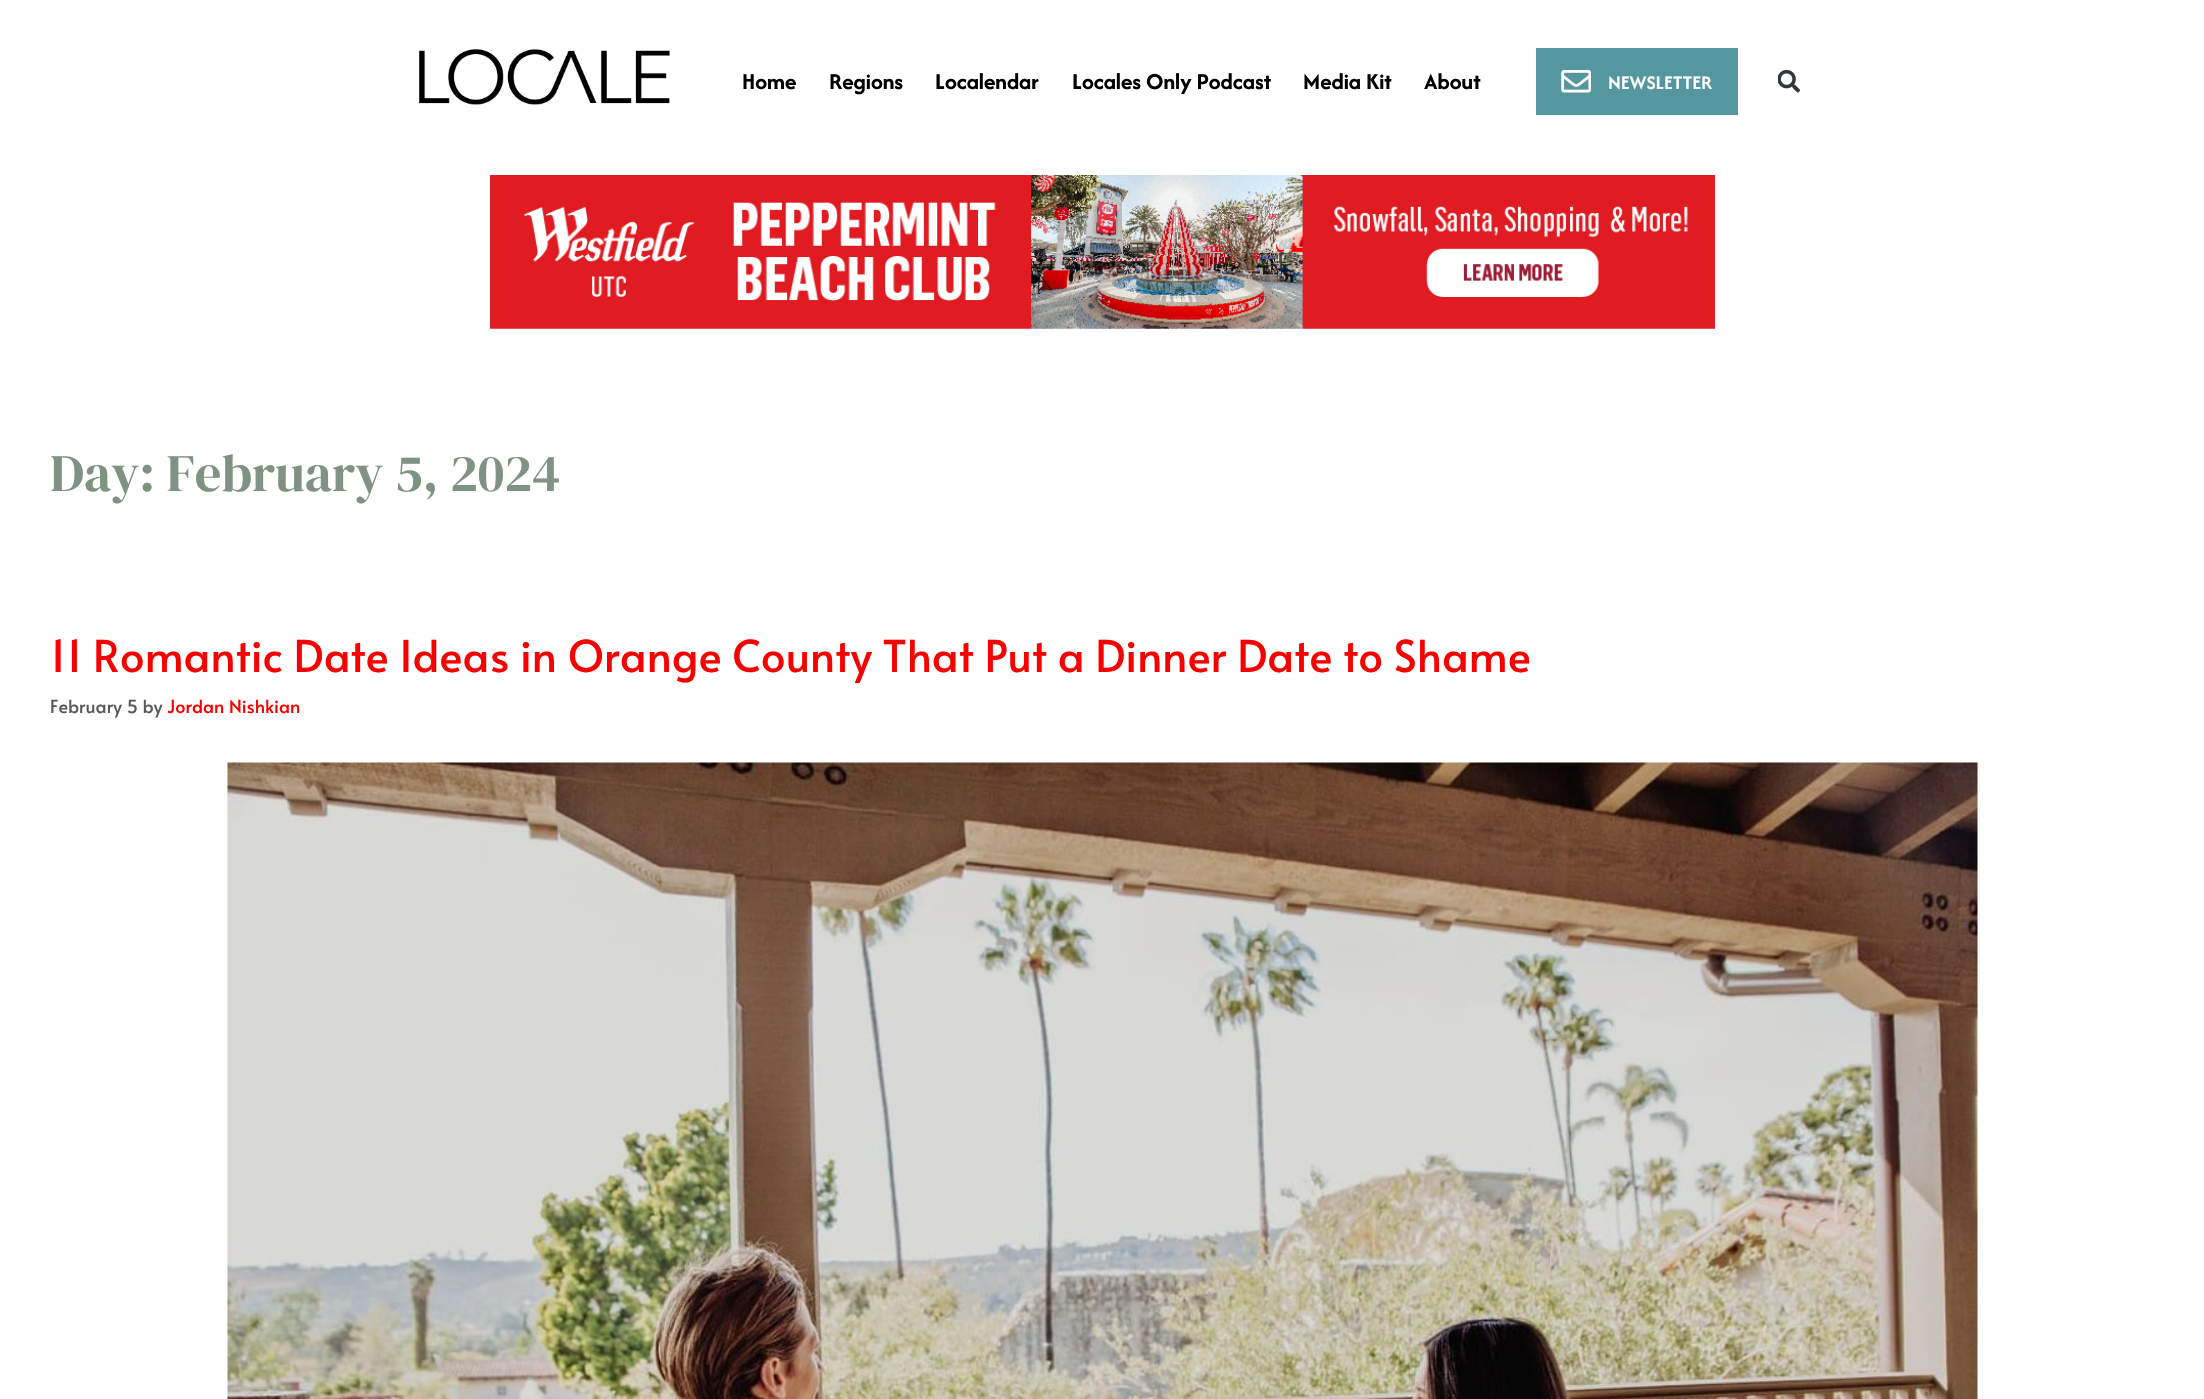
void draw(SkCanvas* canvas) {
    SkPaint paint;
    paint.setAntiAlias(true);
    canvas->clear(0xFFFFFFFF);
    canvas->drawImageRect(SkImages::DeferredFromEncodedData(SkData::MakeFromFileName("img1.png")), SkRect::MakeXYWH(419, 49, 251, 56), SkSamplingOptions());
    SkFont font1(fontMgr->matchFamilyStyle("Afacad", SkFontStyle::Bold()), 23.75f);
    font1.setSubpixel(true);
    paint.setColor(0xFF000000);
    canvas->drawString("Home", 742, 89, font1, paint);
    canvas->drawString("Regions", 829, 89, font1, paint);
    canvas->drawString("Localendar", 935, 89, font1, paint);
    canvas->drawString("Locales Only Podcast", 1072, 89, font1, paint);
    canvas->drawString("Media Kit", 1303, 89, font1, paint);
    canvas->drawString("About", 1424, 89, font1, paint);
    paint.setColor(0xFF5597A1);
    canvas->drawRect(SkRect::MakeXYWH(1536, 48, 202, 67), paint);
    canvas->drawImageRect(SkImages::DeferredFromEncodedData(SkData::MakeFromFileName("img2.png")), SkRect::MakeXYWH(1561, 70, 30, 23), SkSamplingOptions());
    SkFont font2(fontMgr->matchFamilyStyle("Afacad", SkFontStyle(600, SkFontStyle::kNormal_Width, SkFontStyle::kUpright_Slant)), 20);
    font2.setSubpixel(true);
    paint.setColor(0xFFFFFFFF);
    canvas->drawString("NEWSLETTER", 1608, 89, font2, paint);
    canvas->drawImageRect(SkImages::DeferredFromEncodedData(SkData::MakeFromFileName("img3.png")), SkRect::MakeXYWH(1778, 70, 22, 23), SkSamplingOptions());
    canvas->drawImageRect(SkImages::DeferredFromEncodedData(SkData::MakeFromFileName("img4.png")), SkRect::MakeXYWH(490, 175, 1225, 154), SkSamplingOptions());
    SkFont font3(fontMgr->matchFamilyStyle("DM Serif Display", SkFontStyle::Normal()), 52.5f);
    font3.setSubpixel(true);
    paint.setColor(0xFF809383);
    canvas->drawString("Day: February 5, 2024", 50, 491, font3, paint);
    SkFont font4(fontMgr->matchFamilyStyle("Alata", SkFontStyle::Normal()), 43.75f);
    font4.setSubpixel(true);
    paint.setColor(0xFFF90000);
    canvas->drawString("11 Romantic Date Ideas in Orange County That Put a Dinner Date to Shame", 50, 672, font4, paint);
    SkFont font5(fontMgr->matchFamilyStyle("Alata", SkFontStyle::Normal()), 18);
    font5.setSubpixel(true);
    paint.setColor(0xFF595959);
    canvas->drawString("February 5 by", 50, 713, font5, paint);
    paint.setColor(0xFFF90000);
    canvas->drawString("Jordan Nishkian", 167, 713, font5, paint);
    canvas->drawImageRect(SkImages::DeferredFromEncodedData(SkData::MakeFromFileName("img5.png")), SkRect::MakeXYWH(227, 762, 1751, 637), SkSamplingOptions());
}
